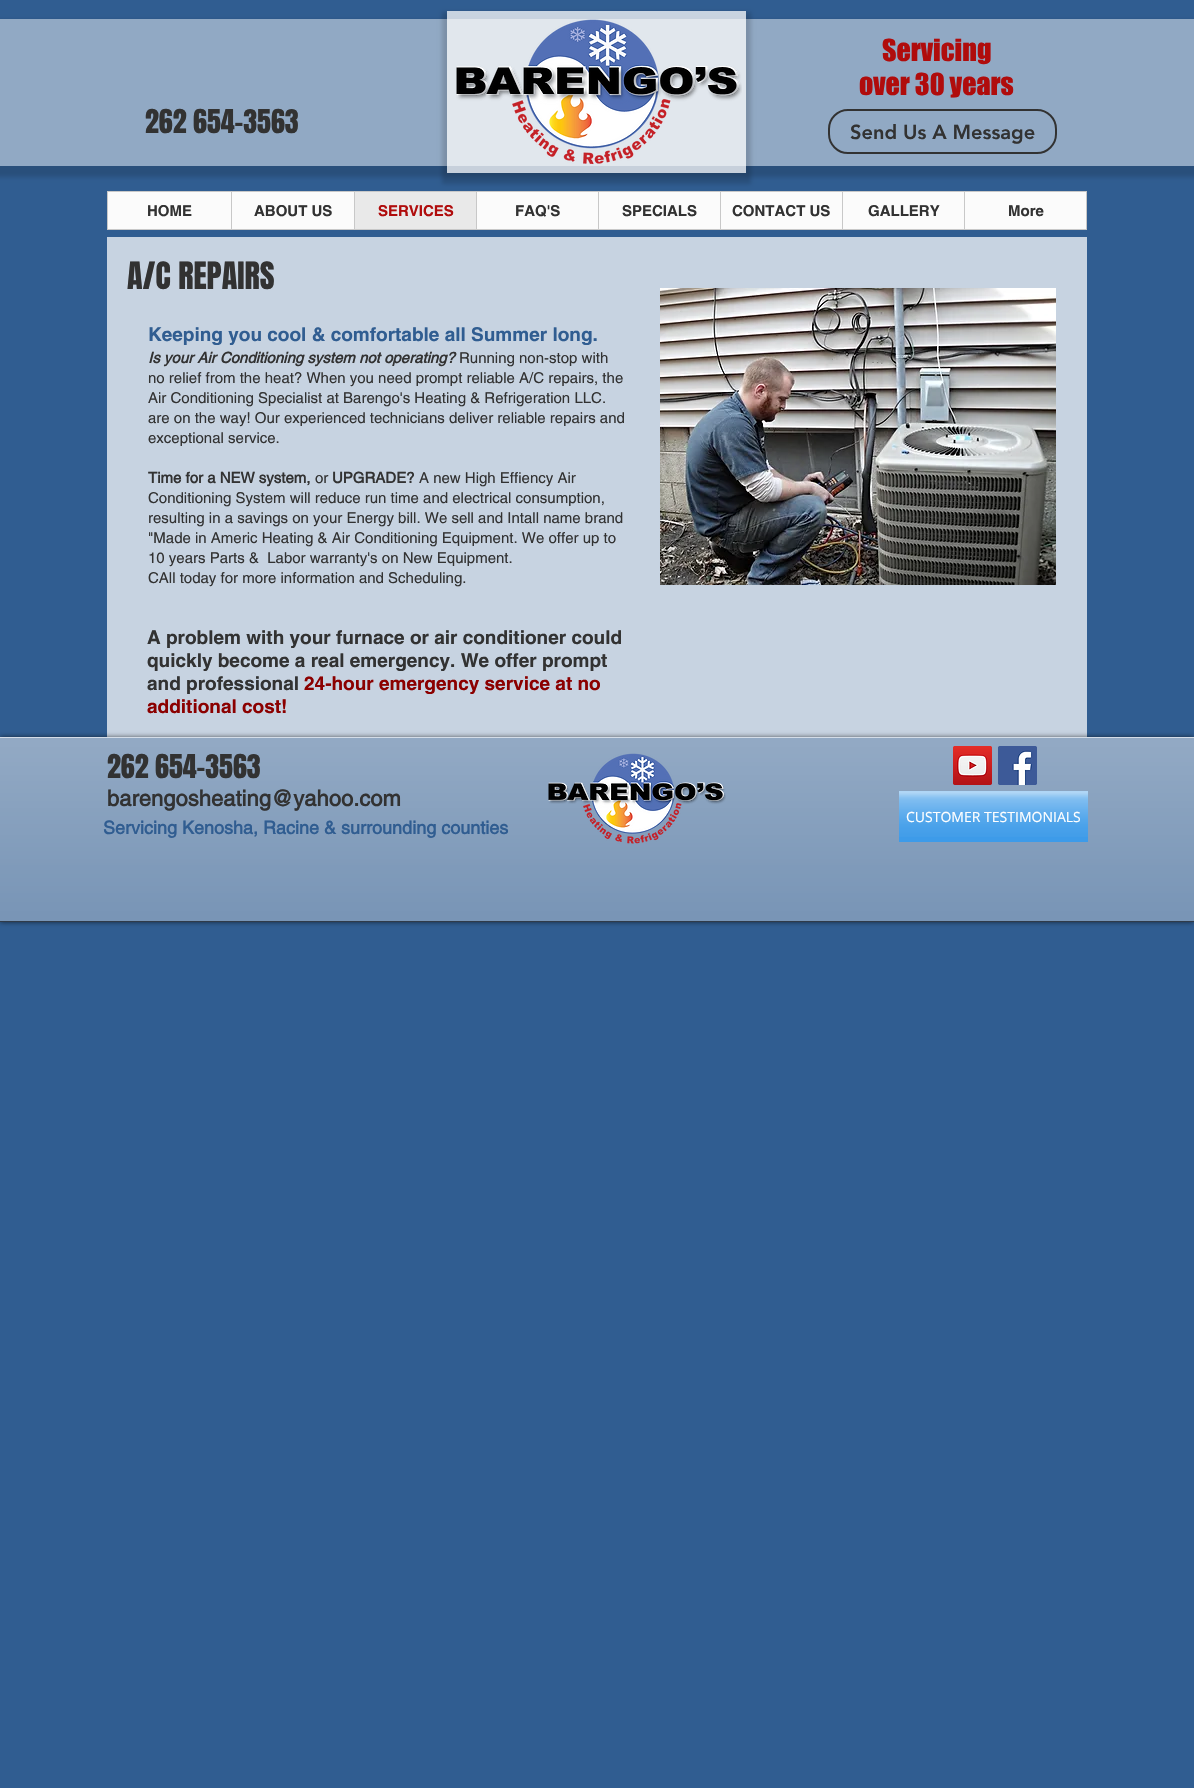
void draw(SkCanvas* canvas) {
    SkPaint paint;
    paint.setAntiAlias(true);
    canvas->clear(0xFF305D91);
    paint.setColor(0x26000000);
    paint.setMaskFilter(SkMaskFilter::MakeBlur(kNormal_SkBlurStyle, 2));
    canvas->drawRect(SkRect::MakeXYWH(-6, 20, 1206, 157), paint);
    paint.setMaskFilter(nullptr);
    paint.setColor(0xFF91A9C4);
    canvas->drawRect(SkRect::MakeXYWH(0, 19, 1194, 147), paint);
    canvas->save();
    canvas->clipPath(SkPathBuilder(SkPathFillType::kEvenOdd).moveTo(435, 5).lineTo(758, 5).lineTo(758, 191).lineTo(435, 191).close().moveTo(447, 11).lineTo(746, 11).lineTo(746, 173).lineTo(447, 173).close().detach(), true);
    paint.setColor(0x26000000);
    paint.setMaskFilter(SkMaskFilter::MakeBlur(kNormal_SkBlurStyle, 2));
    canvas->drawRect(SkRect::MakeXYWH(442, 12, 309, 172), paint);
    paint.setMaskFilter(nullptr);
    canvas->restore();
    paint.setColor(0xBFFBFBFB);
    canvas->drawRect(SkRect::MakeXYWH(447, 11, 299, 162), paint);
    canvas->drawImageRect(SkImages::DeferredFromEncodedData(SkData::MakeFromFileName("img1.png")), SkRect::MakeXYWH(456, 19, 286, 146), SkSamplingOptions());
    SkFont font1(fontMgr->matchFamilyStyle("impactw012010", SkFontStyle::Normal()), 28);
    font1.setSubpixel(true);
    paint.setColor(0xFFB00C0C);
    canvas->drawString("Servicing", 882, 61, font1, paint);
    canvas->drawString("over 30 years", 859, 95, font1, paint);
    SkFont font2(fontMgr->matchFamilyStyle("Anton", SkFontStyle::Normal()), 28);
    font2.setSubpixel(true);
    paint.setColor(0xFF323232);
    canvas->drawString("262 654-3563", 145, 133, font2, paint);
    paint.setStyle(SkPaint::kStroke_Style);
    paint.setStrokeWidth(2);
    canvas->drawRoundRect(SkRect::MakeXYWH(829, 110, 227, 43), 19, 19, paint);
    SkFont font3(fontMgr->matchFamilyStyle("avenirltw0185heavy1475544", SkFontStyle(900, SkFontStyle::kNormal_Width, SkFontStyle::kUpright_Slant)), 20);
    font3.setSubpixel(true);
    paint.setStyle(SkPaint::kFill_Style);
    canvas->drawString("Send Us A Message", 850, 139, font3, paint);
    paint.setColor(0xFFFBFBFB);
    canvas->drawRect(SkRect::MakeXYWH(107.5f, 191.5f, 979, 38), paint);
    paint.setStyle(SkPaint::kStroke_Style);
    paint.setStrokeWidth(1);
    paint.setColor(0xFFC8C8C8);
    canvas->drawRect(SkRect::MakeXYWH(107.5f, 191.5f, 979, 38), paint);
    SkFont font4(fontMgr->matchFamilyStyle("helvetica", SkFontStyle::Bold()), 15);
    font4.setSubpixel(true);
    paint.setStyle(SkPaint::kFill_Style);
    paint.setColor(0xFF323232);
    canvas->drawString("HOME", 147, 216, font4, paint);
    paint.setColor(0xFFC8C8C8);
    canvas->drawRect(SkRect::MakeXYWH(231, 192, 1, 37), paint);
    paint.setColor(0xFF323232);
    canvas->drawString("ABOUT US", 254, 216, font4, paint);
    paint.setColor(0xFFE9E9E9);
    canvas->drawRect(SkRect::MakeXYWH(355, 192, 121, 37), paint);
    paint.setColor(0xFFC8C8C8);
    canvas->drawRect(SkRect::MakeXYWH(354, 192, 1, 37), paint);
    paint.setColor(0xFFB00C0C);
    canvas->drawString("SERVICES", 378, 216, font4, paint);
    paint.setColor(0xFFC8C8C8);
    canvas->drawRect(SkRect::MakeXYWH(476, 192, 1, 37), paint);
    paint.setColor(0xFF323232);
    canvas->drawString("FAQ'S", 515, 216, font4, paint);
    paint.setColor(0xFFC8C8C8);
    canvas->drawRect(SkRect::MakeXYWH(598, 192, 1, 37), paint);
    paint.setColor(0xFF323232);
    canvas->drawString("SPECIALS", 622, 216, font4, paint);
    paint.setColor(0xFFC8C8C8);
    canvas->drawRect(SkRect::MakeXYWH(720, 192, 1, 37), paint);
    paint.setColor(0xFF323232);
    canvas->drawString("CONTACT US", 732, 216, font4, paint);
    paint.setColor(0xFFC8C8C8);
    canvas->drawRect(SkRect::MakeXYWH(842, 192, 1, 37), paint);
    paint.setColor(0xFF323232);
    canvas->drawString("GALLERY", 868, 216, font4, paint);
    paint.setColor(0xFFC8C8C8);
    canvas->drawRect(SkRect::MakeXYWH(964, 192, 1, 37), paint);
    paint.setColor(0xFF323232);
    canvas->drawString("More", 1008, 216, font4, paint);
    paint.setColor(0xFFC7D3E1);
    canvas->drawRect(SkRect::MakeXYWH(107, 237, 980, 500), paint);
    SkFont font5(fontMgr->matchFamilyStyle("Anton", SkFontStyle::Normal()), 32);
    font5.setSubpixel(true);
    paint.setColor(0xFF323232);
    canvas->drawString("A/C REPAIRS", 127, 289, font5, paint);
    SkFont font6(fontMgr->matchFamilyStyle("helvetica", SkFontStyle::Bold()), 19);
    font6.setSubpixel(true);
    paint.setColor(0xFF305D91);
    canvas->drawString("Keeping you cool & comfortable all Summer long.", 148, 341, font6, paint);
    SkFont font7(fontMgr->matchFamilyStyle("helvetica", SkFontStyle::BoldItalic()), 15);
    font7.setSubpixel(true);
    paint.setColor(0xFF323232);
    canvas->drawString("Is your Air Conditioning system not operating?", 148, 363, font7, paint);
    SkFont font8(fontMgr->matchFamilyStyle("helvetica", SkFontStyle::Normal()), 15);
    font8.setSubpixel(true);
    canvas->drawString("Running non-stop with", 459, 363, font8, paint);
    canvas->drawString("no relief from the heat? When you need prompt reliable A/C repairs, the", 148, 383, font8, paint);
    canvas->drawString("Air Conditioning Specialist at Barengo's Heating & Refrigeration LLC.", 148, 403, font8, paint);
    canvas->drawString("are on the way! Our experienced technicians deliver reliable repairs and", 148, 423, font8, paint);
    canvas->drawString("exceptional service.", 148, 443, font8, paint);
    SkFont font9(fontMgr->matchFamilyStyle("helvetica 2", SkFontStyle::Bold()), 15);
    font9.setSubpixel(true);
    canvas->drawString("Time for a NEW system,", 148, 483, font9, paint);
    canvas->drawString("or", 315, 483, font8, paint);
    canvas->drawString("UPGRADE?", 332, 483, font9, paint);
    canvas->drawString("A new High Effiency Air", 419, 483, font8, paint);
    canvas->drawString("Conditioning System will reduce run time and electrical consumption,", 148, 503, font8, paint);
    canvas->drawString("resulting in a savings on your Energy bill. We sell and Intall name brand", 148, 523, font8, paint);
    canvas->drawString("\"Made in Americ Heating & Air Conditioning Equipment. We offer up to", 148, 543, font8, paint);
    canvas->drawString("10 years Parts &  Labor warranty's on New Equipment.", 148, 563, font8, paint);
    canvas->drawString("CAll today for more information and Scheduling.", 148, 583, font8, paint);
    canvas->drawImageRect(SkImages::DeferredFromEncodedData(SkData::MakeFromFileName("img2.png")), SkRect::MakeXYWH(660, 288, 396, 297), SkSamplingOptions());
    canvas->drawString("A problem with your furnace or air conditioner could", 147, 644, font6, paint);
    canvas->drawString("quickly become a real emergency. We offer prompt", 147, 667, font6, paint);
    canvas->drawString("and professional", 147, 690, font6, paint);
    paint.setColor(0xFF8B0000);
    canvas->drawString("24-hour emergency service at no", 304, 690, font6, paint);
    canvas->drawString("additional cost!", 147, 713, font6, paint);
    paint.setColor(0x99000000);
    paint.setMaskFilter(SkMaskFilter::MakeBlur(kNormal_SkBlurStyle, 2.5f));
    canvas->drawRect(SkRect::MakeXYWH(0, 737, 1194, 185), paint);
    paint.setMaskFilter(nullptr);
    paint.setColor(0xFF6D8CB0);
    canvas->drawRect(SkRect::MakeXYWH(0, 738, 1194, 183), paint);
    canvas->drawImageRect(SkImages::DeferredFromEncodedData(SkData::MakeFromFileName("img3.png")), SkRect::MakeXYWH(0, 738, 1194, 183), SkSamplingOptions());
    paint.setColor(0xFF303B49);
    canvas->drawRect(SkRect::MakeXYWH(0, 921, 1194, 1), paint);
    paint.setColor(0xFFD4DDE8);
    canvas->drawRect(SkRect::MakeXYWH(0, 737, 1194, 1), paint);
    paint.setColor(0xFF323232);
    canvas->drawString("262 654-3563", 107, 778, font2, paint);
    canvas->drawImageRect(SkImages::DeferredFromEncodedData(SkData::MakeFromFileName("img4.png")), SkRect::MakeXYWH(548, 753, 178, 91), SkSamplingOptions());
    canvas->drawImageRect(SkImages::DeferredFromEncodedData(SkData::MakeFromFileName("img5.png")), SkRect::MakeXYWH(953, 746, 39, 39), SkSamplingOptions());
    canvas->drawImageRect(SkImages::DeferredFromEncodedData(SkData::MakeFromFileName("img6.png")), SkRect::MakeXYWH(998, 746, 39, 39), SkSamplingOptions());
    SkFont font10(fontMgr->matchFamilyStyle("helvetica 2", SkFontStyle::Bold()), 22);
    font10.setSubpixel(true);
    canvas->drawString("barengosheating@yahoo.com", 107, 806, font10, paint);
    paint.setColor(0xFF3D9BE9);
    canvas->drawRect(SkRect::MakeXYWH(899, 791, 189, 51), paint);
    canvas->drawImageRect(SkImages::DeferredFromEncodedData(SkData::MakeFromFileName("img7.png")), SkRect::MakeXYWH(899, 791, 189, 46), SkSamplingOptions());
    SkFont font11(fontMgr->matchFamilyStyle("Open Sans", SkFontStyle::Normal()), 14);
    font11.setSubpixel(true);
    paint.setColor(0xFFFFFFFF);
    canvas->drawString("CUSTOMER TESTIMONIALS", 906, 822, font11, paint);
    SkFont font12(fontMgr->matchFamilyStyle("helvetica 2", SkFontStyle::Bold()), 18);
    font12.setSubpixel(true);
    paint.setColor(0xFF305D91);
    canvas->drawString("Servicing Kenosha, Racine & surrounding counties", 103, 834, font12, paint);
}
